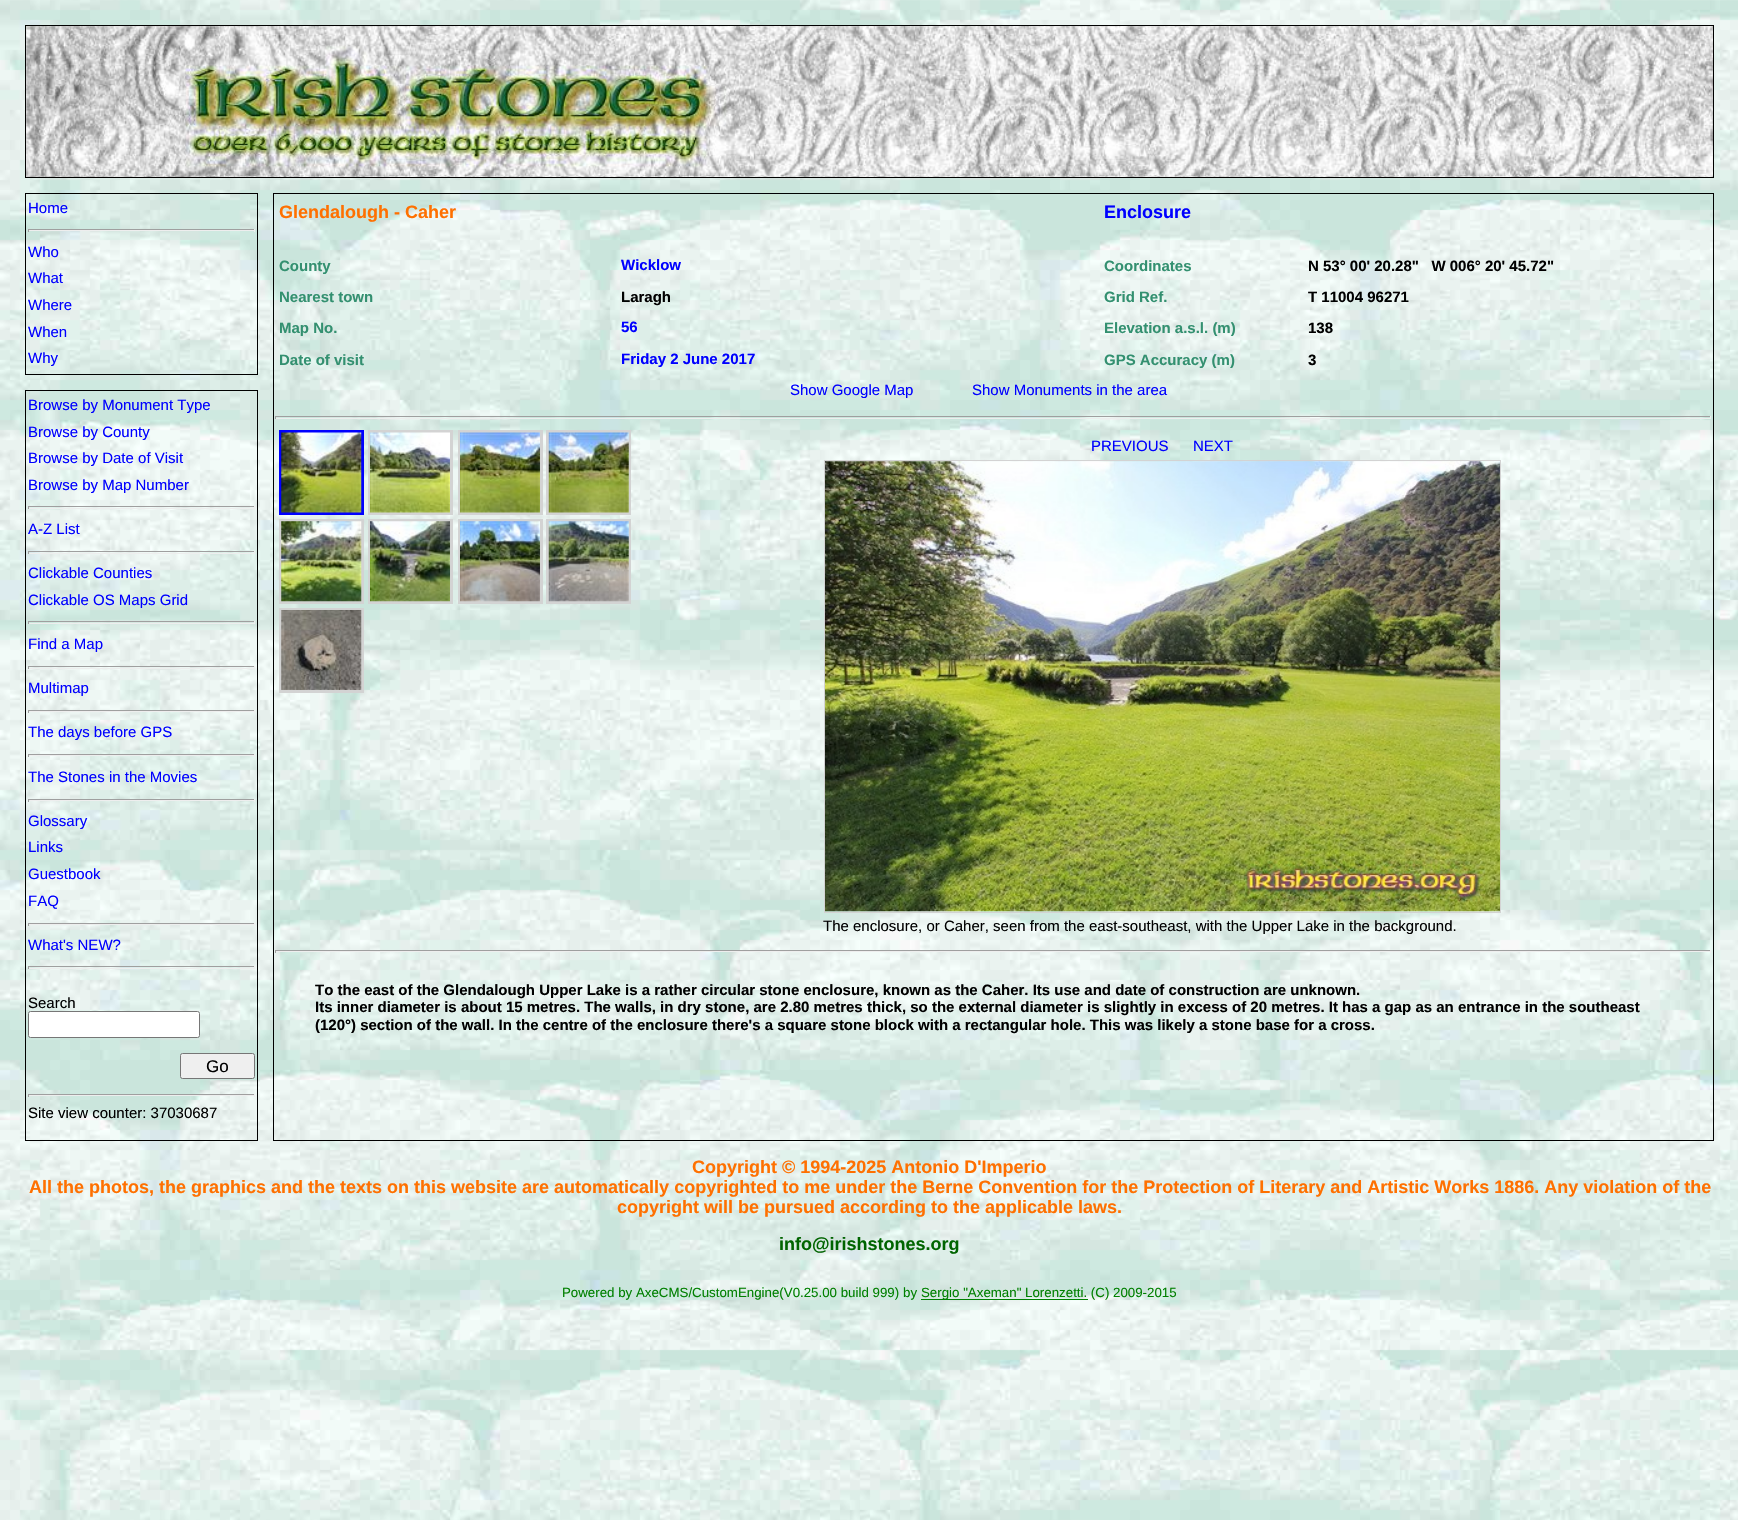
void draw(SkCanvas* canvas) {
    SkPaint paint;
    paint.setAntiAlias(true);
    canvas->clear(0xFFFFFFFF);
    canvas->drawImageRect(SkImages::DeferredFromEncodedData(SkData::MakeFromFileName("img1.png")), SkRect::MakeXYWH(0, 0, 1738, 1520), SkSamplingOptions());
    canvas->drawImageRect(SkImages::DeferredFromEncodedData(SkData::MakeFromFileName("img2.png")), SkRect::MakeXYWH(26, 26, 1687, 151), SkSamplingOptions());
    paint.setStyle(SkPaint::kStroke_Style);
    paint.setStrokeWidth(1);
    paint.setColor(0xFF000000);
    canvas->drawRect(SkRect::MakeXYWH(25.5f, 25.5f, 1688, 152), paint);
    canvas->drawRect(SkRect::MakeXYWH(25.5f, 193.5f, 232, 181), paint);
    SkFont font1(fontMgr->matchFamilyStyle("Liberation Sans", SkFontStyle::Normal()), 15);
    font1.setSubpixel(true);
    paint.setStyle(SkPaint::kFill_Style);
    paint.setColor(0xFF0000FF);
    canvas->drawString("Home", 28, 213, font1, paint);
    paint.setColor(0xFF9F9F9F);
    canvas->drawRect(SkRect::MakeXYWH(28, 229, 227, 1), paint);
    paint.setColor(0xFFEEEEEE);
    canvas->drawRect(SkRect::MakeXYWH(254, 229, 1, 3), paint);
    canvas->drawRect(SkRect::MakeXYWH(28, 230, 227, 1), paint);
    paint.setColor(0xFF9F9F9F);
    canvas->drawRect(SkRect::MakeXYWH(28, 229, 1, 3), paint);
    paint.setColor(0xFF0000FF);
    canvas->drawString("Who", 28, 257, font1, paint);
    canvas->drawString("What", 28, 283, font1, paint);
    canvas->drawString("Where", 28, 310, font1, paint);
    canvas->drawString("When", 28, 337, font1, paint);
    canvas->drawString("Why", 28, 363, font1, paint);
    paint.setStyle(SkPaint::kStroke_Style);
    paint.setColor(0xFF000000);
    canvas->drawRect(SkRect::MakeXYWH(273.5f, 193.5f, 1440, 947), paint);
    SkFont font2(fontMgr->matchFamilyStyle("Liberation Sans", SkFontStyle::Bold()), 18);
    font2.setSubpixel(true);
    paint.setStyle(SkPaint::kFill_Style);
    paint.setColor(0xFFFF7000);
    canvas->drawString("Glendalough - Caher", 279, 218, font2, paint);
    paint.setColor(0xFF0000FF);
    canvas->drawString("Enclosure", 1104, 218, font2, paint);
    SkFont font3(fontMgr->matchFamilyStyle("Liberation Sans", SkFontStyle::Bold()), 15);
    font3.setSubpixel(true);
    paint.setColor(0xFF339070);
    canvas->drawString("County", 279, 271, font3, paint);
    paint.setColor(0xFF0000FF);
    canvas->drawString("Wicklow", 621, 270, font3, paint);
    paint.setColor(0xFF339070);
    canvas->drawString("Coordinates", 1104, 271, font3, paint);
    paint.setColor(0xFF000000);
    canvas->drawString("N 53° 00' 20.28\"   W 006° 20' 45.72\"", 1308, 271, font3, paint);
    paint.setColor(0xFF339070);
    canvas->drawString("Nearest town", 279, 302, font3, paint);
    paint.setColor(0xFF000000);
    canvas->drawString("Laragh", 621, 302, font3, paint);
    paint.setColor(0xFF339070);
    canvas->drawString("Grid Ref.", 1104, 302, font3, paint);
    paint.setColor(0xFF000000);
    canvas->drawString("T 11004 96271", 1308, 302, font3, paint);
    paint.setColor(0xFF339070);
    canvas->drawString("Map No.", 279, 333, font3, paint);
    paint.setColor(0xFF0000FF);
    canvas->drawString("56", 621, 332, font3, paint);
    paint.setColor(0xFF339070);
    canvas->drawString("Elevation a.s.l. (m)", 1104, 333, font3, paint);
    paint.setColor(0xFF000000);
    canvas->drawString("138", 1308, 333, font3, paint);
    paint.setColor(0xFF339070);
    canvas->drawString("Date of visit", 279, 365, font3, paint);
    paint.setColor(0xFF0000FF);
    canvas->drawString("Friday 2 June 2017", 621, 364, font3, paint);
    paint.setColor(0xFF339070);
    canvas->drawString("GPS Accuracy (m)", 1104, 365, font3, paint);
    paint.setColor(0xFF000000);
    canvas->drawString("3", 1308, 365, font3, paint);
    paint.setColor(0xFF0000FF);
    canvas->drawString("Show Google Map", 790, 395, font1, paint);
    canvas->drawString("Show Monuments in the area", 972, 395, font1, paint);
    paint.setColor(0xFF9F9F9F);
    canvas->drawRect(SkRect::MakeXYWH(275, 416, 1436, 1), paint);
    paint.setColor(0xFFEEEEEE);
    canvas->drawRect(SkRect::MakeXYWH(1710, 416, 1, 3), paint);
    canvas->drawRect(SkRect::MakeXYWH(275, 418, 1436, 1), paint);
    paint.setColor(0xFF9F9F9F);
    canvas->drawRect(SkRect::MakeXYWH(275, 416, 1, 3), paint);
    paint.setStyle(SkPaint::kStroke_Style);
    paint.setStrokeWidth(3);
    paint.setColor(0xFF0000FF);
    canvas->drawRect(SkRect::MakeXYWH(280.5f, 431.5f, 82, 82), paint);
    paint.setColor(0xFFD3D3D3);
    canvas->drawRect(SkRect::MakeXYWH(369.5f, 431.5f, 82, 82), paint);
    canvas->drawRect(SkRect::MakeXYWH(459.5f, 431.5f, 82, 82), paint);
    canvas->drawRect(SkRect::MakeXYWH(547.5f, 431.5f, 82, 82), paint);
    canvas->drawImageRect(SkImages::DeferredFromEncodedData(SkData::MakeFromFileName("img3.png")), SkRect::MakeXYWH(281, 432, 81, 81), SkSamplingOptions());
    canvas->drawImageRect(SkImages::DeferredFromEncodedData(SkData::MakeFromFileName("img4.png")), SkRect::MakeXYWH(370, 432, 80, 81), SkSamplingOptions());
    canvas->drawImageRect(SkImages::DeferredFromEncodedData(SkData::MakeFromFileName("img5.png")), SkRect::MakeXYWH(460, 432, 80, 81), SkSamplingOptions());
    canvas->drawImageRect(SkImages::DeferredFromEncodedData(SkData::MakeFromFileName("img6.png")), SkRect::MakeXYWH(548, 432, 81, 81), SkSamplingOptions());
    canvas->drawRect(SkRect::MakeXYWH(280.5f, 520.5f, 82, 82), paint);
    canvas->drawRect(SkRect::MakeXYWH(369.5f, 520.5f, 82, 82), paint);
    canvas->drawRect(SkRect::MakeXYWH(459.5f, 520.5f, 82, 82), paint);
    canvas->drawRect(SkRect::MakeXYWH(547.5f, 520.5f, 82, 82), paint);
    canvas->drawImageRect(SkImages::DeferredFromEncodedData(SkData::MakeFromFileName("img7.png")), SkRect::MakeXYWH(281, 521, 81, 81), SkSamplingOptions());
    canvas->drawImageRect(SkImages::DeferredFromEncodedData(SkData::MakeFromFileName("img8.png")), SkRect::MakeXYWH(370, 521, 80, 81), SkSamplingOptions());
    canvas->drawImageRect(SkImages::DeferredFromEncodedData(SkData::MakeFromFileName("img9.png")), SkRect::MakeXYWH(460, 521, 80, 81), SkSamplingOptions());
    canvas->drawImageRect(SkImages::DeferredFromEncodedData(SkData::MakeFromFileName("img10.png")), SkRect::MakeXYWH(548, 521, 81, 81), SkSamplingOptions());
    canvas->drawRect(SkRect::MakeXYWH(280.5f, 609.5f, 82, 82), paint);
    canvas->drawImageRect(SkImages::DeferredFromEncodedData(SkData::MakeFromFileName("img11.png")), SkRect::MakeXYWH(281, 610, 81, 80), SkSamplingOptions());
    paint.setStyle(SkPaint::kFill_Style);
    paint.setColor(0xFF0000FF);
    canvas->drawString("PREVIOUS", 1091, 451, font1, paint);
    canvas->drawString("NEXT", 1193, 451, font1, paint);
    paint.setStyle(SkPaint::kStroke_Style);
    paint.setStrokeWidth(1);
    paint.setColor(0xFFD3D3D3);
    canvas->drawRect(SkRect::MakeXYWH(824.5f, 460.5f, 676, 452), paint);
    canvas->drawImageRect(SkImages::DeferredFromEncodedData(SkData::MakeFromFileName("img12.png")), SkRect::MakeXYWH(825, 461, 675, 451), SkSamplingOptions());
    paint.setStyle(SkPaint::kFill_Style);
    paint.setColor(0xFF000000);
    canvas->drawString("The enclosure, or Caher, seen from the east-southeast, with the Upper Lake in the background.", 823, 931, font1, paint);
    paint.setColor(0xFF9F9F9F);
    canvas->drawRect(SkRect::MakeXYWH(275, 950, 1436, 1), paint);
    paint.setColor(0xFFEEEEEE);
    canvas->drawRect(SkRect::MakeXYWH(1710, 950, 1, 3), paint);
    canvas->drawRect(SkRect::MakeXYWH(275, 951, 1436, 1), paint);
    paint.setColor(0xFF9F9F9F);
    canvas->drawRect(SkRect::MakeXYWH(275, 950, 1, 3), paint);
    paint.setColor(0xFF000000);
    canvas->drawString("To the east of the Glendalough Upper Lake is a rather circular stone enclosure, known as the Caher. Its use and date of construction are unknown.", 315, 995, font3, paint);
    canvas->drawString("Its inner diameter is about 15 metres. The walls, in dry stone, are 2.80 metres thick, so the external diameter is slightly in excess of 20 metres. It has a gap as an entrance in the southeast", 315, 1012, font3, paint);
    canvas->drawString("(120°) section of the wall. In the centre of the enclosure there's a square stone block with a rectangular hole. This was likely a stone base for a cross.", 315, 1030, font3, paint);
    paint.setStyle(SkPaint::kStroke_Style);
    canvas->drawRect(SkRect::MakeXYWH(25.5f, 390.5f, 232, 750), paint);
    paint.setStyle(SkPaint::kFill_Style);
    paint.setColor(0xFF0000FF);
    canvas->drawString("Browse by Monument Type", 28, 410, font1, paint);
    canvas->drawString("Browse by County", 28, 437, font1, paint);
    canvas->drawString("Browse by Date of Visit", 28, 463, font1, paint);
    canvas->drawString("Browse by Map Number", 28, 490, font1, paint);
    paint.setColor(0xFF9F9F9F);
    canvas->drawRect(SkRect::MakeXYWH(28, 506, 227, 1), paint);
    paint.setColor(0xFFEEEEEE);
    canvas->drawRect(SkRect::MakeXYWH(254, 506, 1, 3), paint);
    canvas->drawRect(SkRect::MakeXYWH(28, 508, 227, 1), paint);
    paint.setColor(0xFF9F9F9F);
    canvas->drawRect(SkRect::MakeXYWH(28, 506, 1, 3), paint);
    paint.setColor(0xFF0000FF);
    canvas->drawString("A-Z List", 28, 534, font1, paint);
    paint.setColor(0xFF9F9F9F);
    canvas->drawRect(SkRect::MakeXYWH(28, 551, 227, 1), paint);
    paint.setColor(0xFFEEEEEE);
    canvas->drawRect(SkRect::MakeXYWH(254, 551, 1, 3), paint);
    canvas->drawRect(SkRect::MakeXYWH(28, 553, 227, 1), paint);
    paint.setColor(0xFF9F9F9F);
    canvas->drawRect(SkRect::MakeXYWH(28, 551, 1, 3), paint);
    paint.setColor(0xFF0000FF);
    canvas->drawString("Clickable Counties", 28, 578, font1, paint);
    canvas->drawString("Clickable OS Maps Grid", 28, 605, font1, paint);
    paint.setColor(0xFF9F9F9F);
    canvas->drawRect(SkRect::MakeXYWH(28, 621, 227, 1), paint);
    paint.setColor(0xFFEEEEEE);
    canvas->drawRect(SkRect::MakeXYWH(254, 621, 1, 3), paint);
    canvas->drawRect(SkRect::MakeXYWH(28, 623, 227, 1), paint);
    paint.setColor(0xFF9F9F9F);
    canvas->drawRect(SkRect::MakeXYWH(28, 621, 1, 3), paint);
    paint.setColor(0xFF0000FF);
    canvas->drawString("Find a Map", 28, 649, font1, paint);
    paint.setColor(0xFF9F9F9F);
    canvas->drawRect(SkRect::MakeXYWH(28, 666, 227, 1), paint);
    paint.setColor(0xFFEEEEEE);
    canvas->drawRect(SkRect::MakeXYWH(254, 666, 1, 3), paint);
    canvas->drawRect(SkRect::MakeXYWH(28, 668, 227, 1), paint);
    paint.setColor(0xFF9F9F9F);
    canvas->drawRect(SkRect::MakeXYWH(28, 666, 1, 3), paint);
    paint.setColor(0xFF0000FF);
    canvas->drawString("Multimap", 28, 693, font1, paint);
    paint.setColor(0xFF9F9F9F);
    canvas->drawRect(SkRect::MakeXYWH(28, 710, 227, 1), paint);
    paint.setColor(0xFFEEEEEE);
    canvas->drawRect(SkRect::MakeXYWH(254, 710, 1, 3), paint);
    canvas->drawRect(SkRect::MakeXYWH(28, 711, 227, 1), paint);
    paint.setColor(0xFF9F9F9F);
    canvas->drawRect(SkRect::MakeXYWH(28, 710, 1, 3), paint);
    paint.setColor(0xFF0000FF);
    canvas->drawString("The days before GPS", 28, 737, font1, paint);
    paint.setColor(0xFF9F9F9F);
    canvas->drawRect(SkRect::MakeXYWH(28, 754, 227, 1), paint);
    paint.setColor(0xFFEEEEEE);
    canvas->drawRect(SkRect::MakeXYWH(254, 754, 1, 3), paint);
    canvas->drawRect(SkRect::MakeXYWH(28, 755, 227, 1), paint);
    paint.setColor(0xFF9F9F9F);
    canvas->drawRect(SkRect::MakeXYWH(28, 754, 1, 3), paint);
    paint.setColor(0xFF0000FF);
    canvas->drawString("The Stones in the Movies", 28, 782, font1, paint);
    paint.setColor(0xFF9F9F9F);
    canvas->drawRect(SkRect::MakeXYWH(28, 799, 227, 1), paint);
    paint.setColor(0xFFEEEEEE);
    canvas->drawRect(SkRect::MakeXYWH(254, 799, 1, 3), paint);
    canvas->drawRect(SkRect::MakeXYWH(28, 800, 227, 1), paint);
    paint.setColor(0xFF9F9F9F);
    canvas->drawRect(SkRect::MakeXYWH(28, 799, 1, 3), paint);
    paint.setColor(0xFF0000FF);
    canvas->drawString("Glossary", 28, 826, font1, paint);
    canvas->drawString("Links", 28, 852, font1, paint);
    canvas->drawString("Guestbook", 28, 879, font1, paint);
    canvas->drawString("FAQ", 28, 906, font1, paint);
    paint.setColor(0xFF9F9F9F);
    canvas->drawRect(SkRect::MakeXYWH(28, 923, 227, 1), paint);
    paint.setColor(0xFFEEEEEE);
    canvas->drawRect(SkRect::MakeXYWH(254, 923, 1, 3), paint);
    canvas->drawRect(SkRect::MakeXYWH(28, 924, 227, 1), paint);
    paint.setColor(0xFF9F9F9F);
    canvas->drawRect(SkRect::MakeXYWH(28, 923, 1, 3), paint);
    paint.setColor(0xFF0000FF);
    canvas->drawString("What's NEW?", 28, 950, font1, paint);
    paint.setColor(0xFF9F9F9F);
    canvas->drawRect(SkRect::MakeXYWH(28, 966, 227, 1), paint);
    paint.setColor(0xFFEEEEEE);
    canvas->drawRect(SkRect::MakeXYWH(254, 966, 1, 3), paint);
    canvas->drawRect(SkRect::MakeXYWH(28, 968, 227, 1), paint);
    paint.setColor(0xFF9F9F9F);
    canvas->drawRect(SkRect::MakeXYWH(28, 966, 1, 3), paint);
    paint.setColor(0xFF000000);
    canvas->drawString("Search", 28, 1008, font1, paint);
    paint.setColor(0xFFFFFFFF);
    canvas->drawRoundRect(SkRect::MakeXYWH(28.5f, 1011.5f, 171, 26), 2, 2, paint);
    paint.setStyle(SkPaint::kStroke_Style);
    paint.setColor(0xFF767676);
    canvas->drawRoundRect(SkRect::MakeXYWH(28.5f, 1011.5f, 171, 26), 2, 2, paint);
    paint.setStyle(SkPaint::kFill_Style);
    paint.setColor(0xFFEFEFEF);
    canvas->drawRoundRect(SkRect::MakeXYWH(180.5f, 1053.5f, 74, 25), 2, 2, paint);
    paint.setStyle(SkPaint::kStroke_Style);
    paint.setColor(0xFF767676);
    canvas->drawRoundRect(SkRect::MakeXYWH(180.5f, 1053.5f, 74, 25), 2, 2, paint);
    SkFont font4(fontMgr->matchFamilyStyle("Liberation Sans", SkFontStyle::Normal()), 17);
    font4.setSubpixel(true);
    paint.setStyle(SkPaint::kFill_Style);
    paint.setColor(0xFF000000);
    canvas->drawString("Go", 206, 1072, font4, paint);
    paint.setColor(0xFF9F9F9F);
    canvas->drawRect(SkRect::MakeXYWH(28, 1094, 227, 1), paint);
    paint.setColor(0xFFEEEEEE);
    canvas->drawRect(SkRect::MakeXYWH(254, 1094, 1, 3), paint);
    canvas->drawRect(SkRect::MakeXYWH(28, 1095, 227, 1), paint);
    paint.setColor(0xFF9F9F9F);
    canvas->drawRect(SkRect::MakeXYWH(28, 1094, 1, 3), paint);
    paint.setColor(0xFF000000);
    canvas->drawString("Site view counter: 37030687", 28, 1118, font1, paint);
    paint.setColor(0xFFFF7000);
    canvas->drawString("Copyright © 1994-2025 Antonio D'Imperio", 692, 1173, font2, paint);
    canvas->drawString("All the photos, the graphics and the texts on this website are automatically copyrighted to me under the Berne Convention for the Protection of Literary and Artistic Works 1886. Any violation of the", 29, 1193, font2, paint);
    canvas->drawString("copyright will be pursued according to the applicable laws.", 617, 1213, font2, paint);
    paint.setColor(0xFF006400);
    canvas->drawString("info@irishstones.org", 779, 1250, font2, paint);
    SkFont font5(fontMgr->matchFamilyStyle("Liberation Sans", SkFontStyle::Normal()), 13.3f);
    font5.setSubpixel(true);
    paint.setColor(0xFF008000);
    canvas->drawString("Powered by AxeCMS/CustomEngine(V0.25.00 build 999)", 562, 1297, font5, paint);
    canvas->drawString("by", 903, 1297, font5, paint);
    canvas->drawRect(SkRect::MakeXYWH(921, 1299, 167, 1), paint);
    canvas->drawString("Sergio \"Axeman\" Lorenzetti. (C) 2009-2015", 921, 1297, font5, paint);
}
